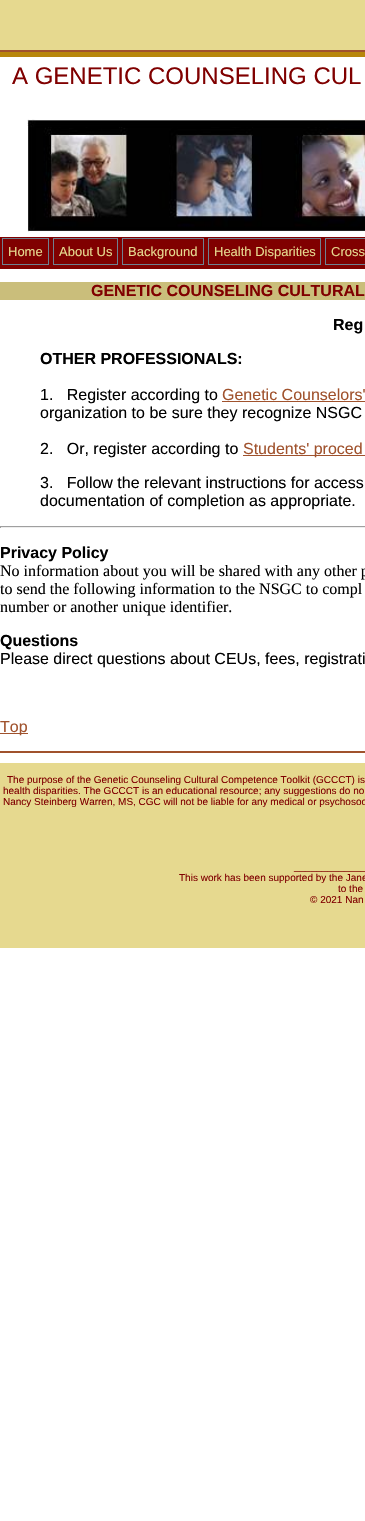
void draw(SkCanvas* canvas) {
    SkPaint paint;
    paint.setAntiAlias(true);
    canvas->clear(0xFFFFFFFF);
    canvas->drawImageRect(SkImages::DeferredFromEncodedData(SkData::MakeFromFileName("img1.png")), SkRect::MakeXYWH(0, 0, 365, 57), SkSamplingOptions());
    paint.setColor(0xFFA0522D);
    canvas->drawRect(SkRect::MakeXYWH(0, 751, 365, 2), paint);
    SkFont font1(fontMgr->matchFamilyStyle("Liberation Sans", SkFontStyle::Normal()), 24);
    font1.setSubpixel(true);
    paint.setColor(0xFF800000);
    canvas->drawString("A GENETIC COUNSELING CUL", 12, 84, font1, paint);
    canvas->drawImageRect(SkImages::DeferredFromEncodedData(SkData::MakeFromFileName("img2.png")), SkRect::MakeXYWH(27, 119, 338, 113), SkSamplingOptions());
    canvas->drawRect(SkRect::MakeXYWH(0, 237, 365, 32), paint);
    paint.setStyle(SkPaint::kStroke_Style);
    paint.setStrokeWidth(1);
    paint.setColor(0xFF708090);
    canvas->drawRect(SkRect::MakeXYWH(2.5f, 238.5f, 46, 26), paint);
    SkFont font2(fontMgr->matchFamilyStyle("Liberation Sans", SkFontStyle::Normal()), 13);
    font2.setSubpixel(true);
    paint.setStyle(SkPaint::kFill_Style);
    paint.setColor(0xFFE6D98F);
    canvas->drawString("Home", 8, 256, font2, paint);
    paint.setStyle(SkPaint::kStroke_Style);
    paint.setColor(0xFF708090);
    canvas->drawRect(SkRect::MakeXYWH(53.5f, 238.5f, 64, 26), paint);
    paint.setStyle(SkPaint::kFill_Style);
    paint.setColor(0xFFE6D98F);
    canvas->drawString("About Us", 59, 256, font2, paint);
    paint.setStyle(SkPaint::kStroke_Style);
    paint.setColor(0xFF708090);
    canvas->drawRect(SkRect::MakeXYWH(122.5f, 238.5f, 81, 26), paint);
    paint.setStyle(SkPaint::kFill_Style);
    paint.setColor(0xFFE6D98F);
    canvas->drawString("Background", 128, 256, font2, paint);
    paint.setStyle(SkPaint::kStroke_Style);
    paint.setColor(0xFF708090);
    canvas->drawRect(SkRect::MakeXYWH(208.5f, 238.5f, 112, 26), paint);
    paint.setStyle(SkPaint::kFill_Style);
    paint.setColor(0xFFE6D98F);
    canvas->drawString("Health Disparities", 214, 256, font2, paint);
    paint.setStyle(SkPaint::kStroke_Style);
    paint.setColor(0xFF708090);
    canvas->drawRect(SkRect::MakeXYWH(325.5f, 238.5f, 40, 26), paint);
    paint.setStyle(SkPaint::kFill_Style);
    paint.setColor(0xFFE6D98F);
    canvas->drawString("Cross", 331, 256, font2, paint);
    paint.setColor(0xFFCABE7B);
    canvas->drawRect(SkRect::MakeXYWH(0, 282, 365, 18), paint);
    SkFont font3(fontMgr->matchFamilyStyle("Liberation Sans", SkFontStyle::Bold()), 16);
    font3.setSubpixel(true);
    paint.setColor(0xFF800000);
    canvas->drawString("GENETIC COUNSELING CULTURAL", 91, 296, font3, paint);
    paint.setColor(0xFF000000);
    canvas->drawString("Reg", 333, 330, font3, paint);
    canvas->drawString("OTHER PROFESSIONALS:", 40, 364, font3, paint);
    SkFont font4(fontMgr->matchFamilyStyle("Liberation Sans", SkFontStyle::Normal()), 16);
    font4.setSubpixel(true);
    canvas->drawString("1.   Register according to", 40, 400, font4, paint);
    paint.setColor(0xFFA0522D);
    canvas->drawString("Genetic Counselors'", 222, 400, font4, paint);
    canvas->drawRect(SkRect::MakeXYWH(222, 401, 143, 1), paint);
    paint.setColor(0xFF000000);
    canvas->drawString("organization to be sure they recognize NSGC", 40, 418, font4, paint);
    canvas->drawString("2.   Or, register according to", 40, 454, font4, paint);
    paint.setColor(0xFFA0522D);
    canvas->drawRect(SkRect::MakeXYWH(243, 455, 122, 1), paint);
    canvas->drawString("Students' proced", 243, 454, font4, paint);
    paint.setColor(0xFF000000);
    canvas->drawString("3.   Follow the relevant instructions for access", 40, 488, font4, paint);
    canvas->drawString("documentation of completion as appropriate.", 40, 506, font4, paint);
    paint.setColor(0xFF9F9F9F);
    canvas->drawRect(SkRect::MakeXYWH(0, 526, 365, 1), paint);
    paint.setColor(0xFFEEEEEE);
    canvas->drawRect(SkRect::MakeXYWH(0, 527, 365, 1), paint);
    paint.setColor(0xFF9F9F9F);
    canvas->drawRect(SkRect::MakeXYWH(0, 526, 1, 2), paint);
    paint.setColor(0xFF000000);
    canvas->drawString("Privacy Policy", 0, 558, font3, paint);
    SkFont font5(fontMgr->matchFamilyStyle("Liberation Serif", SkFontStyle::Normal()), 16);
    font5.setSubpixel(true);
    canvas->drawString("No information about you will be shared with any other p", 0, 576, font5, paint);
    canvas->drawString("to send the following information to the NSGC to compl", 0, 594, font5, paint);
    canvas->drawString("number or another unique identifier.", 0, 612, font5, paint);
    canvas->drawString("Questions", 0, 646, font3, paint);
    canvas->drawString("Please direct questions about CEUs, fees, registrati", 0, 664, font4, paint);
    paint.setColor(0xFFA0522D);
    canvas->drawRect(SkRect::MakeXYWH(0, 733, 28, 1), paint);
    canvas->drawString("Top", 0, 732, font4, paint);
    paint.setColor(0xFFE6D98F);
    canvas->drawRect(SkRect::MakeXYWH(0, 763, 365, 185), paint);
    SkFont font6(fontMgr->matchFamilyStyle("Liberation Sans", SkFontStyle::Normal()), 10);
    font6.setSubpixel(true);
    paint.setColor(0xFF800000);
    canvas->drawString("The purpose of the Genetic Counseling Cultural Competence Toolkit (GCCCT) is", 7, 783, font6, paint);
    canvas->drawString("health disparities. The GCCCT is an educational resource; any suggestions do no", 3, 794, font6, paint);
    canvas->drawString("Nancy Steinberg Warren, MS, CGC will not be liable for any medical or psychosoc", 3, 805, font6, paint);
    canvas->drawString("_____________", 294, 870, font6, paint);
    canvas->drawString("This work has been supported by the Jane", 179, 881, font6, paint);
    canvas->drawString("to the", 338, 892, font6, paint);
    canvas->drawString("© 2021 Nan", 310, 903, font6, paint);
}
